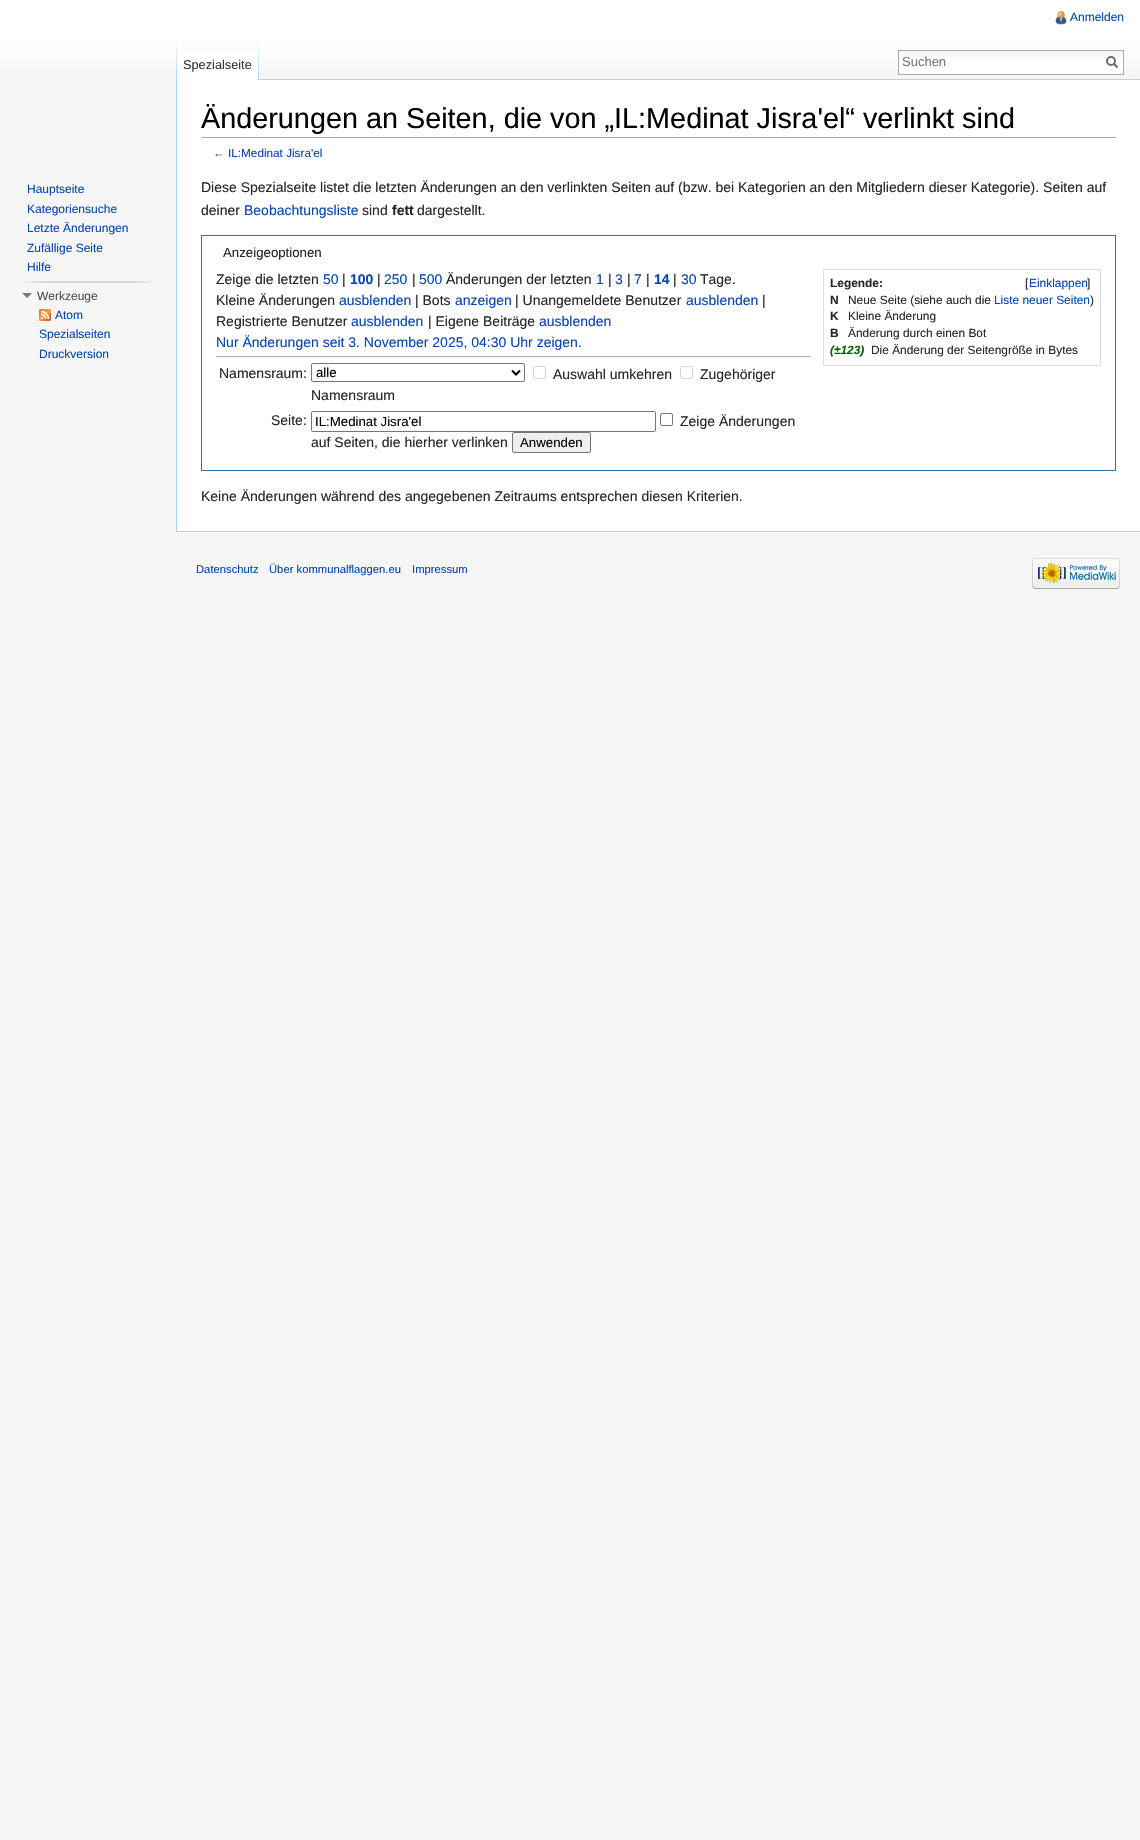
void draw(SkCanvas* canvas) {
    SkPaint paint;
    paint.setAntiAlias(true);
    canvas->clear(0xFFF6F6F6);
    {
        const SkColor colors[] = {0xFFFFFFFF, 0xFFF6F6F6};
        const float stops[] = {0.5f, 1};
        const SkPoint ends[] = {{570, 0}, {570, 80}};
        paint.setShader(SkGradientShader::MakeLinear(ends, colors, stops, 2, SkTileMode::kClamp));
        paint.setAlpha(255);
    }
    canvas->drawRect(SkRect::MakeXYWH(0, 0, 1140, 69), paint);
    canvas->drawImageRect(SkImages::DeferredFromEncodedData(SkData::MakeFromFileName("img1.png")), SkRect::MakeXYWH(1055, 11, 12, 14), SkSamplingOptions());
    SkFont font1(fontMgr->matchFamilyStyle("Liberation Sans", SkFontStyle::Normal()), 12);
    font1.setSubpixel(true);
    paint.setShader(nullptr);
    paint.setColor(0xFF0645AD);
    canvas->drawString("Anmelden", 1070, 21, font1, paint);
    canvas->drawImageRect(SkImages::DeferredFromEncodedData(SkData::MakeFromFileName("img2.png")), SkRect::MakeXYWH(176, 40, 1, 39), SkSamplingOptions());
    paint.setColor(0xFFFFFFFF);
    canvas->drawRect(SkRect::MakeXYWH(177, 51, 81, 29), paint);
    canvas->drawImageRect(SkImages::DeferredFromEncodedData(SkData::MakeFromFileName("img3.png")), SkRect::MakeXYWH(258, 40, 1, 40), SkSamplingOptions());
    SkFont font2(fontMgr->matchFamilyStyle("Liberation Sans", SkFontStyle::Normal()), 12.75f);
    font2.setSubpixel(true);
    paint.setColor(0xFF333333);
    canvas->drawString("Spezialseite", 183, 69, font2, paint);
    paint.setColor(0xFFFFFFFF);
    canvas->drawRect(SkRect::MakeXYWH(899, 59, 224, 15), paint);
    canvas->drawImageRect(SkImages::DeferredFromEncodedData(SkData::MakeFromFileName("img4.png")), SkRect::MakeXYWH(899, 51, 224, 8), SkSamplingOptions());
    paint.setStyle(SkPaint::kStroke_Style);
    paint.setStrokeWidth(1);
    paint.setColor(0xFFAAAAAA);
    canvas->drawRect(SkRect::MakeXYWH(898.5f, 50.5f, 225, 24), paint);
    SkFont font3(fontMgr->matchFamilyStyle("Liberation Sans", SkFontStyle::Normal()), 13);
    font3.setSubpixel(true);
    paint.setStyle(SkPaint::kFill_Style);
    paint.setColor(0xFF757575);
    canvas->drawString("Suchen", 902, 66, font3, paint);
    paint.setStyle(SkPaint::kStroke_Style);
    paint.setStrokeWidth(2);
    paint.setColor(0xFF6C6C6C);
    canvas->drawPath(SkPathBuilder().moveTo(1117.5f, 67.5f).lineTo(1113.5f, 63.5f).detach(), paint);
    canvas->drawCircle(1111, 61, 4, paint);
    paint.setStyle(SkPaint::kFill_Style);
    paint.setColor(0xFF0645AD);
    canvas->drawString("Hauptseite", 27, 193, font1, paint);
    canvas->drawString("Kategoriensuche", 27, 213, font1, paint);
    canvas->drawString("Letzte Änderungen", 27, 232, font1, paint);
    canvas->drawString("Zufällige Seite", 27, 252, font1, paint);
    canvas->drawString("Hilfe", 27, 271, font1, paint);
    canvas->drawImageRect(SkImages::DeferredFromEncodedData(SkData::MakeFromFileName("img5.png")), SkRect::MakeXYWH(22, 281, 135, 2), SkSamplingOptions());
    paint.setColor(0xFF797979);
    canvas->drawPath(SkPathBuilder().moveTo(32, 293).lineTo(27, 298).lineTo(22, 293).close().detach(), paint);
    paint.setColor(0xFF4D4D4D);
    canvas->drawString("Werkzeuge", 37, 300, font1, paint);
    canvas->drawImageRect(SkImages::DeferredFromEncodedData(SkData::MakeFromFileName("img6.png")), SkRect::MakeXYWH(39, 309, 12, 12), SkSamplingOptions());
    paint.setColor(0xFF0645AD);
    canvas->drawString("Atom", 55, 319, font1, paint);
    canvas->drawString("Spezialseiten", 39, 338, font1, paint);
    canvas->drawString("Druckversion", 39, 358, font1, paint);
    paint.setColor(0xFFFFFFFF);
    canvas->drawRect(SkRect::MakeXYWH(177, 80, 963, 451), paint);
    paint.setColor(0xFFA7D7F9);
    canvas->drawRect(SkRect::MakeXYWH(259, 79, 881, 1), paint);
    canvas->drawRect(SkRect::MakeXYWH(176, 531, 964, 1), paint);
    canvas->drawRect(SkRect::MakeXYWH(176, 79, 1, 453), paint);
    paint.setColor(0xFFAAAAAA);
    canvas->drawRect(SkRect::MakeXYWH(201, 137, 915, 1), paint);
    SkFont font4(fontMgr->matchFamilyStyle("Liberation Sans", SkFontStyle::Normal()), 28.8f);
    font4.setSubpixel(true);
    paint.setColor(0xFF000000);
    canvas->drawString("Änderungen an Seiten, die von „IL:Medinat Jisra'el“ verlinkt sind", 201, 128, font4, paint);
    SkFont font5(fontMgr->matchFamilyStyle("Liberation Sans", SkFontStyle::Normal()), 11.75f);
    font5.setSubpixel(true);
    paint.setColor(0xFF545454);
    canvas->drawString("←", 213, 157, font5, paint);
    paint.setColor(0xFF0645AD);
    canvas->drawString("IL:Medinat Jisra'el", 228, 157, font5, paint);
    SkFont font6(fontMgr->matchFamilyStyle("Liberation Sans", SkFontStyle::Normal()), 14);
    font6.setSubpixel(true);
    paint.setColor(0xFF252525);
    canvas->drawString("Diese Spezialseite listet die letzten Änderungen an den verlinkten Seiten auf (bzw. bei Kategorien an den Mitgliedern dieser Kategorie). Seiten auf", 201, 192, font6, paint);
    canvas->drawString("deiner", 201, 215, font6, paint);
    paint.setColor(0xFF0645AD);
    canvas->drawString("Beobachtungsliste", 244, 215, font6, paint);
    paint.setColor(0xFF252525);
    canvas->drawString("sind", 362, 215, font6, paint);
    SkFont font7(fontMgr->matchFamilyStyle("Liberation Sans", SkFontStyle::Bold()), 14);
    font7.setSubpixel(true);
    canvas->drawString("fett", 392, 215, font7, paint);
    canvas->drawString("dargestellt.", 417, 215, font6, paint);
    paint.setStyle(SkPaint::kStroke_Style);
    paint.setStrokeWidth(1);
    paint.setColor(0xFF2F6FAB);
    canvas->drawRect(SkRect::MakeXYWH(201.5f, 235.5f, 914, 235), paint);
    SkFont font8(fontMgr->matchFamilyStyle("Liberation Sans", SkFontStyle::Normal()), 13.25f);
    font8.setSubpixel(true);
    paint.setStyle(SkPaint::kFill_Style);
    paint.setColor(0xFF252525);
    canvas->drawString("Anzeigeoptionen", 223, 257, font8, paint);
    canvas->drawString("Zeige die letzten", 216, 284, font6, paint);
    paint.setColor(0xFF0645AD);
    canvas->drawString("50", 323, 284, font6, paint);
    paint.setColor(0xFF252525);
    canvas->drawString("|", 342, 284, font6, paint);
    paint.setColor(0xFF0645AD);
    canvas->drawString("100", 350, 284, font7, paint);
    paint.setColor(0xFF252525);
    canvas->drawString("|", 377, 284, font6, paint);
    paint.setColor(0xFF0645AD);
    canvas->drawString("250", 384, 284, font6, paint);
    paint.setColor(0xFF252525);
    canvas->drawString("|", 412, 284, font6, paint);
    paint.setColor(0xFF0645AD);
    canvas->drawString("500", 419, 284, font6, paint);
    paint.setColor(0xFF252525);
    canvas->drawString("Änderungen der letzten", 446, 284, font6, paint);
    paint.setColor(0xFF0645AD);
    canvas->drawString("1", 596, 284, font6, paint);
    paint.setColor(0xFF252525);
    canvas->drawString("|", 608, 284, font6, paint);
    paint.setColor(0xFF0645AD);
    canvas->drawString("3", 615, 284, font6, paint);
    paint.setColor(0xFF252525);
    canvas->drawString("|", 627, 284, font6, paint);
    paint.setColor(0xFF0645AD);
    canvas->drawString("7", 634, 284, font6, paint);
    paint.setColor(0xFF252525);
    canvas->drawString("|", 646, 284, font6, paint);
    paint.setColor(0xFF0645AD);
    canvas->drawString("14", 654, 284, font7, paint);
    paint.setColor(0xFF252525);
    canvas->drawString("|", 673, 284, font6, paint);
    paint.setColor(0xFF0645AD);
    canvas->drawString("30", 681, 284, font6, paint);
    paint.setColor(0xFF252525);
    canvas->drawString("Tage.", 700, 284, font6, paint);
    paint.setStyle(SkPaint::kStroke_Style);
    paint.setColor(0xFFDDDDDD);
    canvas->drawRect(SkRect::MakeXYWH(823.5f, 269.5f, 277, 96), paint);
    SkFont font9(fontMgr->matchFamilyStyle("Liberation Sans", SkFontStyle::Bold()), 11.9f);
    font9.setSubpixel(true);
    paint.setStyle(SkPaint::kFill_Style);
    paint.setColor(0xFF252525);
    canvas->drawString("Legende:", 830, 287, font9, paint);
    SkFont font10(fontMgr->matchFamilyStyle("Liberation Sans", SkFontStyle::Normal()), 11.9f);
    font10.setSubpixel(true);
    canvas->drawString("[", 1025, 287, font10, paint);
    paint.setColor(0xFF0645AD);
    canvas->drawString("Einklappen", 1029, 287, font10, paint);
    paint.setColor(0xFF252525);
    canvas->drawString("]", 1087, 287, font10, paint);
    canvas->drawString("N", 830, 304, font9, paint);
    canvas->drawString("Neue Seite (siehe auch die", 848, 304, font10, paint);
    paint.setColor(0xFF0645AD);
    canvas->drawString("Liste neuer Seiten", 994, 304, font10, paint);
    paint.setColor(0xFF252525);
    canvas->drawString(")", 1090, 304, font10, paint);
    canvas->drawString("K", 830, 320, font9, paint);
    canvas->drawString("Kleine Änderung", 848, 320, font10, paint);
    canvas->drawString("B", 830, 337, font9, paint);
    canvas->drawString("Änderung durch einen Bot", 848, 337, font10, paint);
    SkFont font11(fontMgr->matchFamilyStyle("Liberation Sans", SkFontStyle::BoldItalic()), 11.9f);
    font11.setSubpixel(true);
    paint.setColor(0xFF006400);
    canvas->drawString("(±123)", 830, 354, font11, paint);
    paint.setColor(0xFF252525);
    canvas->drawString("Die Änderung der Seitengröße in Bytes", 871, 354, font10, paint);
    canvas->drawString("Kleine Änderungen", 216, 305, font6, paint);
    paint.setColor(0xFF0645AD);
    canvas->drawString("ausblenden", 339, 305, font6, paint);
    paint.setColor(0xFF252525);
    canvas->drawString("| Bots", 415, 305, font6, paint);
    paint.setColor(0xFF0645AD);
    canvas->drawString("anzeigen", 455, 305, font6, paint);
    paint.setColor(0xFF252525);
    canvas->drawString("| Unangemeldete Benutzer", 515, 305, font6, paint);
    paint.setColor(0xFF0645AD);
    canvas->drawString("ausblenden", 686, 305, font6, paint);
    paint.setColor(0xFF252525);
    canvas->drawString("|", 762, 305, font6, paint);
    canvas->drawString("Registrierte Benutzer", 216, 326, font6, paint);
    paint.setColor(0xFF0645AD);
    canvas->drawString("ausblenden", 351, 326, font6, paint);
    paint.setColor(0xFF252525);
    canvas->drawString("| Eigene Beiträge", 428, 326, font6, paint);
    paint.setColor(0xFF0645AD);
    canvas->drawString("ausblenden", 539, 326, font6, paint);
    canvas->drawString("Nur Änderungen seit 3. November 2025, 04:30 Uhr zeigen.", 216, 347, font6, paint);
    paint.setColor(0xFFAAAAAA);
    canvas->drawRect(SkRect::MakeXYWH(216, 356, 595, 1), paint);
    paint.setColor(0xFF252525);
    canvas->drawString("Namensraum:", 219, 378, font6, paint);
    paint.setStyle(SkPaint::kStroke_Style);
    paint.setColor(0xFF767676);
    canvas->drawRoundRect(SkRect::MakeXYWH(311.5f, 363.5f, 213, 18), 1.5f, 1.5f, paint);
    paint.setStrokeWidth(2);
    paint.setColor(0xFF000000);
    canvas->drawPath(SkPathBuilder().moveTo(512, 370.5f).lineTo(516, 374.5f).lineTo(520, 370.5f).detach(), paint);
    paint.setStyle(SkPaint::kFill_Style);
    canvas->drawString("alle", 316, 377, font8, paint);
    paint.setStyle(SkPaint::kStroke_Style);
    paint.setStrokeWidth(1);
    paint.setColor(0xFFD6D6D6);
    canvas->drawRoundRect(SkRect::MakeXYWH(533.5f, 366.5f, 12, 12), 1.5f, 1.5f, paint);
    paint.setStyle(SkPaint::kFill_Style);
    paint.setColor(0xFF252525);
    canvas->drawString("Auswahl umkehren", 553, 379, font6, paint);
    paint.setStyle(SkPaint::kStroke_Style);
    paint.setColor(0xFFD6D6D6);
    canvas->drawRoundRect(SkRect::MakeXYWH(680.5f, 366.5f, 12, 12), 1.5f, 1.5f, paint);
    paint.setStyle(SkPaint::kFill_Style);
    paint.setColor(0xFF252525);
    canvas->drawString("Zugehöriger", 700, 379, font6, paint);
    canvas->drawString("Namensraum", 311, 400, font6, paint);
    canvas->drawString("Seite:", 271, 425, font6, paint);
    paint.setStyle(SkPaint::kStroke_Style);
    paint.setColor(0xFF767676);
    canvas->drawRoundRect(SkRect::MakeXYWH(311.5f, 411.5f, 344, 20), 1.5f, 1.5f, paint);
    paint.setStyle(SkPaint::kFill_Style);
    paint.setColor(0xFF000000);
    canvas->drawString("IL:Medinat Jisra'el", 315, 426, font8, paint);
    paint.setStyle(SkPaint::kStroke_Style);
    paint.setColor(0xFF767676);
    canvas->drawRoundRect(SkRect::MakeXYWH(660.5f, 413.5f, 12, 12), 1.5f, 1.5f, paint);
    paint.setStyle(SkPaint::kFill_Style);
    paint.setColor(0xFF252525);
    canvas->drawString("Zeige Änderungen", 680, 426, font6, paint);
    canvas->drawString("auf Seiten, die hierher verlinken", 311, 447, font6, paint);
    paint.setColor(0xFFEFEFEF);
    canvas->drawRoundRect(SkRect::MakeXYWH(512.5f, 432.5f, 78, 20), 1.5f, 1.5f, paint);
    paint.setStyle(SkPaint::kStroke_Style);
    paint.setColor(0xFF767676);
    canvas->drawRoundRect(SkRect::MakeXYWH(512.5f, 432.5f, 78, 20), 1.5f, 1.5f, paint);
    paint.setStyle(SkPaint::kFill_Style);
    paint.setColor(0xFF000000);
    canvas->drawString("Anwenden", 520, 447, font8, paint);
    paint.setColor(0xFF252525);
    canvas->drawString("Keine Änderungen während des angegebenen Zeitraums entsprechen diesen Kriterien.", 201, 501, font6, paint);
    SkFont font12(fontMgr->matchFamilyStyle("Liberation Sans", SkFontStyle::Normal()), 11.25f);
    font12.setSubpixel(true);
    paint.setColor(0xFF0645AD);
    canvas->drawString("Datenschutz", 196, 573, font12, paint);
    canvas->drawString("Über kommunalflaggen.eu", 269, 573, font12, paint);
    canvas->drawString("Impressum", 412, 573, font12, paint);
    canvas->drawImageRect(SkImages::DeferredFromEncodedData(SkData::MakeFromFileName("img7.png")), SkRect::MakeXYWH(1032, 558, 88, 31), SkSamplingOptions());
}
